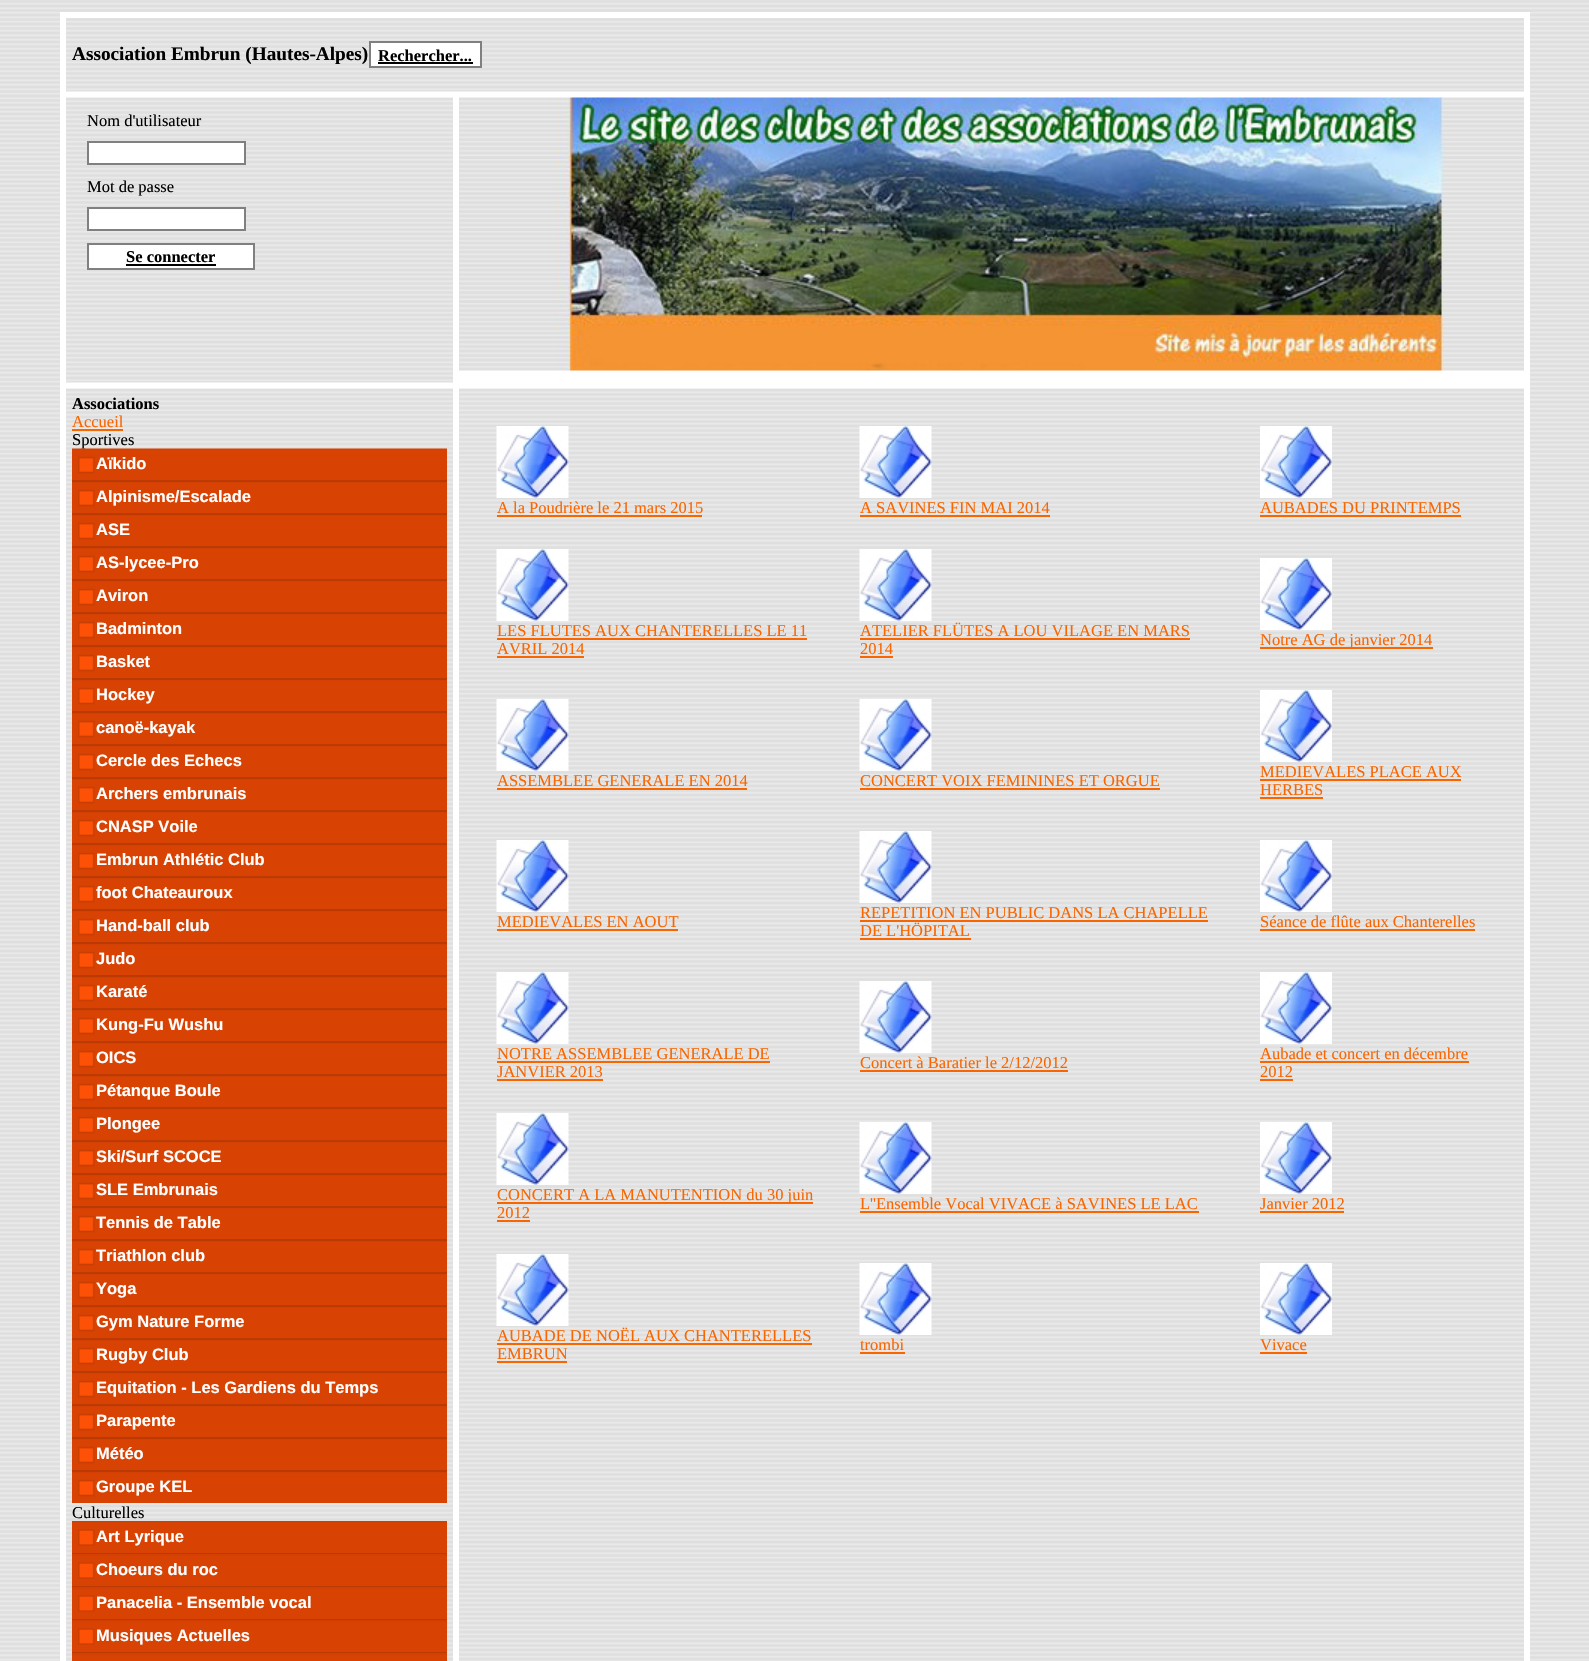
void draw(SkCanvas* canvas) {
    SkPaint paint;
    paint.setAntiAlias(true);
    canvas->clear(0xFFFFFFFF);
    canvas->drawImageRect(SkImages::DeferredFromEncodedData(SkData::MakeFromFileName("img1.png")), SkRect::MakeXYWH(0, 0, 1589, 1661), SkSamplingOptions());
    paint.setColor(0xFFFFFFFF);
    canvas->drawRect(SkRect::MakeXYWH(60, 12, 1470, 1649), paint);
    canvas->drawImageRect(SkImages::DeferredFromEncodedData(SkData::MakeFromFileName("img2.png")), SkRect::MakeXYWH(66, 18, 1458, 74), SkSamplingOptions());
    SkFont font1(fontMgr->matchFamilyStyle("Liberation Serif", SkFontStyle::Bold()), 19.25f);
    font1.setSubpixel(true);
    paint.setColor(0xFF000000);
    canvas->drawString("Association Embrun (Hautes-Alpes)", 72, 60, font1, paint);
    paint.setColor(0xFFFFFFFF);
    canvas->drawRect(SkRect::MakeXYWH(370, 42, 111, 25), paint);
    paint.setStyle(SkPaint::kStroke_Style);
    paint.setStrokeWidth(2);
    paint.setColor(0xFF808080);
    canvas->drawRect(SkRect::MakeXYWH(370, 42, 111, 25), paint);
    SkFont font2(fontMgr->matchFamilyStyle("Liberation Serif", SkFontStyle::Bold()), 16.5f);
    font2.setSubpixel(true);
    paint.setStyle(SkPaint::kFill_Style);
    paint.setColor(0xFF000000);
    canvas->drawString("Rechercher...", 378, 61, font2, paint);
    canvas->drawRect(SkRect::MakeXYWH(378, 62, 95, 2), paint);
    canvas->drawImageRect(SkImages::DeferredFromEncodedData(SkData::MakeFromFileName("img3.png")), SkRect::MakeXYWH(66, 97, 387, 286), SkSamplingOptions());
    SkFont font3(fontMgr->matchFamilyStyle("Liberation Serif", SkFontStyle::Normal()), 16.5f);
    font3.setSubpixel(true);
    canvas->drawString("Nom d'utilisateur", 87, 126, font3, paint);
    paint.setColor(0xFFFFFFFF);
    canvas->drawRect(SkRect::MakeXYWH(88, 142, 157, 22), paint);
    paint.setStyle(SkPaint::kStroke_Style);
    paint.setColor(0xFF808080);
    canvas->drawRect(SkRect::MakeXYWH(88, 142, 157, 22), paint);
    paint.setStyle(SkPaint::kFill_Style);
    paint.setColor(0xFF000000);
    canvas->drawString("Mot de passe", 87, 192, font3, paint);
    paint.setColor(0xFFFFFFFF);
    canvas->drawRect(SkRect::MakeXYWH(88, 208, 157, 22), paint);
    paint.setStyle(SkPaint::kStroke_Style);
    paint.setColor(0xFF808080);
    canvas->drawRect(SkRect::MakeXYWH(88, 208, 157, 22), paint);
    paint.setStyle(SkPaint::kFill_Style);
    paint.setColor(0xFFFFFFFF);
    canvas->drawRect(SkRect::MakeXYWH(88, 244, 166, 25), paint);
    paint.setStyle(SkPaint::kStroke_Style);
    paint.setColor(0xFF808080);
    canvas->drawRect(SkRect::MakeXYWH(88, 244, 166, 25), paint);
    paint.setStyle(SkPaint::kFill_Style);
    paint.setColor(0xFF000000);
    canvas->drawString("Se connecter", 126, 262, font2, paint);
    canvas->drawRect(SkRect::MakeXYWH(126, 264, 90, 2), paint);
    canvas->drawImageRect(SkImages::DeferredFromEncodedData(SkData::MakeFromFileName("img4.png")), SkRect::MakeXYWH(459, 97, 1065, 274), SkSamplingOptions());
    canvas->drawImageRect(SkImages::DeferredFromEncodedData(SkData::MakeFromFileName("img5.png")), SkRect::MakeXYWH(66, 388, 387, 1273), SkSamplingOptions());
    canvas->drawString("Associations", 72, 409, font2, paint);
    paint.setColor(0xFFF96600);
    canvas->drawString("Accueil", 72, 427, font3, paint);
    canvas->drawRect(SkRect::MakeXYWH(72, 429, 51, 2), paint);
    paint.setColor(0xFF000000);
    canvas->drawString("Sportives", 72, 445, font3, paint);
    canvas->drawImageRect(SkImages::DeferredFromEncodedData(SkData::MakeFromFileName("img6.png")), SkRect::MakeXYWH(72, 448, 375, 1), SkSamplingOptions());
    paint.setColor(0xFFD24103);
    canvas->drawRect(SkRect::MakeXYWH(72, 449, 375, 1), paint);
    paint.setColor(0xFFBB3A03);
    canvas->drawRect(SkRect::MakeXYWH(72, 480, 375, 2), paint);
    paint.setColor(0xFFD84203);
    canvas->drawRect(SkRect::MakeXYWH(72, 450, 375, 30), paint);
    canvas->drawImageRect(SkImages::DeferredFromEncodedData(SkData::MakeFromFileName("img7.png")), SkRect::MakeXYWH(78, 456, 17, 18), SkSamplingOptions());
    SkFont font4(fontMgr->matchFamilyStyle("Liberation Sans", SkFontStyle::Bold()), 16.5f);
    font4.setSubpixel(true);
    paint.setColor(0xFFFFFFFF);
    canvas->drawString("Aïkido", 96, 469, font4, paint);
    paint.setColor(0xFFD24103);
    canvas->drawRect(SkRect::MakeXYWH(72, 482, 375, 1), paint);
    paint.setColor(0xFFBB3A03);
    canvas->drawRect(SkRect::MakeXYWH(72, 513, 375, 2), paint);
    paint.setColor(0xFFD84203);
    canvas->drawRect(SkRect::MakeXYWH(72, 483, 375, 30), paint);
    canvas->drawImageRect(SkImages::DeferredFromEncodedData(SkData::MakeFromFileName("img7.png")), SkRect::MakeXYWH(78, 489, 17, 18), SkSamplingOptions());
    paint.setColor(0xFFFFFFFF);
    canvas->drawString("Alpinisme/Escalade", 96, 502, font4, paint);
    paint.setColor(0xFFD24103);
    canvas->drawRect(SkRect::MakeXYWH(72, 515, 375, 1), paint);
    paint.setColor(0xFFBB3A03);
    canvas->drawRect(SkRect::MakeXYWH(72, 546, 375, 2), paint);
    paint.setColor(0xFFD84203);
    canvas->drawRect(SkRect::MakeXYWH(72, 516, 375, 30), paint);
    canvas->drawImageRect(SkImages::DeferredFromEncodedData(SkData::MakeFromFileName("img7.png")), SkRect::MakeXYWH(78, 522, 17, 18), SkSamplingOptions());
    paint.setColor(0xFFFFFFFF);
    canvas->drawString("ASE", 96, 535, font4, paint);
    paint.setColor(0xFFD24103);
    canvas->drawRect(SkRect::MakeXYWH(72, 548, 375, 1), paint);
    paint.setColor(0xFFBB3A03);
    canvas->drawRect(SkRect::MakeXYWH(72, 579, 375, 2), paint);
    paint.setColor(0xFFD84203);
    canvas->drawRect(SkRect::MakeXYWH(72, 549, 375, 30), paint);
    canvas->drawImageRect(SkImages::DeferredFromEncodedData(SkData::MakeFromFileName("img7.png")), SkRect::MakeXYWH(78, 555, 17, 18), SkSamplingOptions());
    paint.setColor(0xFFFFFFFF);
    canvas->drawString("AS-lycee-Pro", 96, 568, font4, paint);
    paint.setColor(0xFFD24103);
    canvas->drawRect(SkRect::MakeXYWH(72, 581, 375, 1), paint);
    paint.setColor(0xFFBB3A03);
    canvas->drawRect(SkRect::MakeXYWH(72, 612, 375, 2), paint);
    paint.setColor(0xFFD84203);
    canvas->drawRect(SkRect::MakeXYWH(72, 582, 375, 30), paint);
    canvas->drawImageRect(SkImages::DeferredFromEncodedData(SkData::MakeFromFileName("img7.png")), SkRect::MakeXYWH(78, 588, 17, 18), SkSamplingOptions());
    paint.setColor(0xFFFFFFFF);
    canvas->drawString("Aviron", 96, 601, font4, paint);
    paint.setColor(0xFFD24103);
    canvas->drawRect(SkRect::MakeXYWH(72, 614, 375, 1), paint);
    paint.setColor(0xFFBB3A03);
    canvas->drawRect(SkRect::MakeXYWH(72, 645, 375, 2), paint);
    paint.setColor(0xFFD84203);
    canvas->drawRect(SkRect::MakeXYWH(72, 615, 375, 30), paint);
    canvas->drawImageRect(SkImages::DeferredFromEncodedData(SkData::MakeFromFileName("img7.png")), SkRect::MakeXYWH(78, 621, 17, 18), SkSamplingOptions());
    paint.setColor(0xFFFFFFFF);
    canvas->drawString("Badminton", 96, 634, font4, paint);
    paint.setColor(0xFFD24103);
    canvas->drawRect(SkRect::MakeXYWH(72, 647, 375, 1), paint);
    paint.setColor(0xFFBB3A03);
    canvas->drawRect(SkRect::MakeXYWH(72, 678, 375, 2), paint);
    paint.setColor(0xFFD84203);
    canvas->drawRect(SkRect::MakeXYWH(72, 648, 375, 30), paint);
    canvas->drawImageRect(SkImages::DeferredFromEncodedData(SkData::MakeFromFileName("img7.png")), SkRect::MakeXYWH(78, 654, 17, 18), SkSamplingOptions());
    paint.setColor(0xFFFFFFFF);
    canvas->drawString("Basket", 96, 667, font4, paint);
    paint.setColor(0xFFD24103);
    canvas->drawRect(SkRect::MakeXYWH(72, 680, 375, 1), paint);
    paint.setColor(0xFFBB3A03);
    canvas->drawRect(SkRect::MakeXYWH(72, 711, 375, 2), paint);
    paint.setColor(0xFFD84203);
    canvas->drawRect(SkRect::MakeXYWH(72, 681, 375, 30), paint);
    canvas->drawImageRect(SkImages::DeferredFromEncodedData(SkData::MakeFromFileName("img7.png")), SkRect::MakeXYWH(78, 687, 17, 18), SkSamplingOptions());
    paint.setColor(0xFFFFFFFF);
    canvas->drawString("Hockey", 96, 700, font4, paint);
    paint.setColor(0xFFD24103);
    canvas->drawRect(SkRect::MakeXYWH(72, 713, 375, 1), paint);
    paint.setColor(0xFFBB3A03);
    canvas->drawRect(SkRect::MakeXYWH(72, 744, 375, 2), paint);
    paint.setColor(0xFFD84203);
    canvas->drawRect(SkRect::MakeXYWH(72, 714, 375, 30), paint);
    canvas->drawImageRect(SkImages::DeferredFromEncodedData(SkData::MakeFromFileName("img7.png")), SkRect::MakeXYWH(78, 720, 17, 18), SkSamplingOptions());
    paint.setColor(0xFFFFFFFF);
    canvas->drawString("canoë-kayak", 96, 733, font4, paint);
    paint.setColor(0xFFD24103);
    canvas->drawRect(SkRect::MakeXYWH(72, 746, 375, 1), paint);
    paint.setColor(0xFFBB3A03);
    canvas->drawRect(SkRect::MakeXYWH(72, 777, 375, 2), paint);
    paint.setColor(0xFFD84203);
    canvas->drawRect(SkRect::MakeXYWH(72, 747, 375, 30), paint);
    canvas->drawImageRect(SkImages::DeferredFromEncodedData(SkData::MakeFromFileName("img7.png")), SkRect::MakeXYWH(78, 753, 17, 18), SkSamplingOptions());
    paint.setColor(0xFFFFFFFF);
    canvas->drawString("Cercle des Echecs", 96, 766, font4, paint);
    paint.setColor(0xFFD24103);
    canvas->drawRect(SkRect::MakeXYWH(72, 779, 375, 1), paint);
    paint.setColor(0xFFBB3A03);
    canvas->drawRect(SkRect::MakeXYWH(72, 810, 375, 2), paint);
    paint.setColor(0xFFD84203);
    canvas->drawRect(SkRect::MakeXYWH(72, 780, 375, 30), paint);
    canvas->drawImageRect(SkImages::DeferredFromEncodedData(SkData::MakeFromFileName("img7.png")), SkRect::MakeXYWH(78, 786, 17, 18), SkSamplingOptions());
    paint.setColor(0xFFFFFFFF);
    canvas->drawString("Archers embrunais", 96, 799, font4, paint);
    paint.setColor(0xFFD24103);
    canvas->drawRect(SkRect::MakeXYWH(72, 812, 375, 1), paint);
    paint.setColor(0xFFBB3A03);
    canvas->drawRect(SkRect::MakeXYWH(72, 843, 375, 2), paint);
    paint.setColor(0xFFD84203);
    canvas->drawRect(SkRect::MakeXYWH(72, 813, 375, 30), paint);
    canvas->drawImageRect(SkImages::DeferredFromEncodedData(SkData::MakeFromFileName("img7.png")), SkRect::MakeXYWH(78, 819, 17, 18), SkSamplingOptions());
    paint.setColor(0xFFFFFFFF);
    canvas->drawString("CNASP Voile", 96, 832, font4, paint);
    paint.setColor(0xFFD24103);
    canvas->drawRect(SkRect::MakeXYWH(72, 845, 375, 1), paint);
    paint.setColor(0xFFBB3A03);
    canvas->drawRect(SkRect::MakeXYWH(72, 876, 375, 2), paint);
    paint.setColor(0xFFD84203);
    canvas->drawRect(SkRect::MakeXYWH(72, 846, 375, 30), paint);
    canvas->drawImageRect(SkImages::DeferredFromEncodedData(SkData::MakeFromFileName("img7.png")), SkRect::MakeXYWH(78, 852, 17, 18), SkSamplingOptions());
    paint.setColor(0xFFFFFFFF);
    canvas->drawString("Embrun Athlétic Club", 96, 865, font4, paint);
    paint.setColor(0xFFD24103);
    canvas->drawRect(SkRect::MakeXYWH(72, 878, 375, 1), paint);
    paint.setColor(0xFFBB3A03);
    canvas->drawRect(SkRect::MakeXYWH(72, 909, 375, 2), paint);
    paint.setColor(0xFFD84203);
    canvas->drawRect(SkRect::MakeXYWH(72, 879, 375, 30), paint);
    canvas->drawImageRect(SkImages::DeferredFromEncodedData(SkData::MakeFromFileName("img7.png")), SkRect::MakeXYWH(78, 885, 17, 18), SkSamplingOptions());
    paint.setColor(0xFFFFFFFF);
    canvas->drawString("foot Chateauroux", 96, 898, font4, paint);
    paint.setColor(0xFFD24103);
    canvas->drawRect(SkRect::MakeXYWH(72, 911, 375, 1), paint);
    paint.setColor(0xFFBB3A03);
    canvas->drawRect(SkRect::MakeXYWH(72, 942, 375, 2), paint);
    paint.setColor(0xFFD84203);
    canvas->drawRect(SkRect::MakeXYWH(72, 912, 375, 30), paint);
    canvas->drawImageRect(SkImages::DeferredFromEncodedData(SkData::MakeFromFileName("img7.png")), SkRect::MakeXYWH(78, 918, 17, 18), SkSamplingOptions());
    paint.setColor(0xFFFFFFFF);
    canvas->drawString("Hand-ball club", 96, 931, font4, paint);
    paint.setColor(0xFFD24103);
    canvas->drawRect(SkRect::MakeXYWH(72, 944, 375, 1), paint);
    paint.setColor(0xFFBB3A03);
    canvas->drawRect(SkRect::MakeXYWH(72, 975, 375, 2), paint);
    paint.setColor(0xFFD84203);
    canvas->drawRect(SkRect::MakeXYWH(72, 945, 375, 30), paint);
    canvas->drawImageRect(SkImages::DeferredFromEncodedData(SkData::MakeFromFileName("img7.png")), SkRect::MakeXYWH(78, 951, 17, 18), SkSamplingOptions());
    paint.setColor(0xFFFFFFFF);
    canvas->drawString("Judo", 96, 964, font4, paint);
    paint.setColor(0xFFD24103);
    canvas->drawRect(SkRect::MakeXYWH(72, 977, 375, 1), paint);
    paint.setColor(0xFFBB3A03);
    canvas->drawRect(SkRect::MakeXYWH(72, 1008, 375, 2), paint);
    paint.setColor(0xFFD84203);
    canvas->drawRect(SkRect::MakeXYWH(72, 978, 375, 30), paint);
    canvas->drawImageRect(SkImages::DeferredFromEncodedData(SkData::MakeFromFileName("img7.png")), SkRect::MakeXYWH(78, 984, 17, 18), SkSamplingOptions());
    paint.setColor(0xFFFFFFFF);
    canvas->drawString("Karaté", 96, 997, font4, paint);
    paint.setColor(0xFFD24103);
    canvas->drawRect(SkRect::MakeXYWH(72, 1010, 375, 1), paint);
    paint.setColor(0xFFBB3A03);
    canvas->drawRect(SkRect::MakeXYWH(72, 1041, 375, 2), paint);
    paint.setColor(0xFFD84203);
    canvas->drawRect(SkRect::MakeXYWH(72, 1011, 375, 30), paint);
    canvas->drawImageRect(SkImages::DeferredFromEncodedData(SkData::MakeFromFileName("img7.png")), SkRect::MakeXYWH(78, 1017, 17, 18), SkSamplingOptions());
    paint.setColor(0xFFFFFFFF);
    canvas->drawString("Kung-Fu Wushu", 96, 1030, font4, paint);
    paint.setColor(0xFFD24103);
    canvas->drawRect(SkRect::MakeXYWH(72, 1043, 375, 1), paint);
    paint.setColor(0xFFBB3A03);
    canvas->drawRect(SkRect::MakeXYWH(72, 1074, 375, 2), paint);
    paint.setColor(0xFFD84203);
    canvas->drawRect(SkRect::MakeXYWH(72, 1044, 375, 30), paint);
    canvas->drawImageRect(SkImages::DeferredFromEncodedData(SkData::MakeFromFileName("img7.png")), SkRect::MakeXYWH(78, 1050, 17, 18), SkSamplingOptions());
    paint.setColor(0xFFFFFFFF);
    canvas->drawString("OICS", 96, 1063, font4, paint);
    paint.setColor(0xFFD24103);
    canvas->drawRect(SkRect::MakeXYWH(72, 1076, 375, 1), paint);
    paint.setColor(0xFFBB3A03);
    canvas->drawRect(SkRect::MakeXYWH(72, 1107, 375, 2), paint);
    paint.setColor(0xFFD84203);
    canvas->drawRect(SkRect::MakeXYWH(72, 1077, 375, 30), paint);
    canvas->drawImageRect(SkImages::DeferredFromEncodedData(SkData::MakeFromFileName("img7.png")), SkRect::MakeXYWH(78, 1083, 17, 18), SkSamplingOptions());
    paint.setColor(0xFFFFFFFF);
    canvas->drawString("Pétanque Boule", 96, 1096, font4, paint);
    paint.setColor(0xFFD24103);
    canvas->drawRect(SkRect::MakeXYWH(72, 1109, 375, 1), paint);
    paint.setColor(0xFFBB3A03);
    canvas->drawRect(SkRect::MakeXYWH(72, 1140, 375, 2), paint);
    paint.setColor(0xFFD84203);
    canvas->drawRect(SkRect::MakeXYWH(72, 1110, 375, 30), paint);
    canvas->drawImageRect(SkImages::DeferredFromEncodedData(SkData::MakeFromFileName("img7.png")), SkRect::MakeXYWH(78, 1116, 17, 18), SkSamplingOptions());
    paint.setColor(0xFFFFFFFF);
    canvas->drawString("Plongee", 96, 1129, font4, paint);
    paint.setColor(0xFFD24103);
    canvas->drawRect(SkRect::MakeXYWH(72, 1142, 375, 1), paint);
    paint.setColor(0xFFBB3A03);
    canvas->drawRect(SkRect::MakeXYWH(72, 1173, 375, 2), paint);
    paint.setColor(0xFFD84203);
    canvas->drawRect(SkRect::MakeXYWH(72, 1143, 375, 30), paint);
    canvas->drawImageRect(SkImages::DeferredFromEncodedData(SkData::MakeFromFileName("img7.png")), SkRect::MakeXYWH(78, 1149, 17, 18), SkSamplingOptions());
    paint.setColor(0xFFFFFFFF);
    canvas->drawString("Ski/Surf SCOCE", 96, 1162, font4, paint);
    paint.setColor(0xFFD24103);
    canvas->drawRect(SkRect::MakeXYWH(72, 1175, 375, 1), paint);
    paint.setColor(0xFFBB3A03);
    canvas->drawRect(SkRect::MakeXYWH(72, 1206, 375, 2), paint);
    paint.setColor(0xFFD84203);
    canvas->drawRect(SkRect::MakeXYWH(72, 1176, 375, 30), paint);
    canvas->drawImageRect(SkImages::DeferredFromEncodedData(SkData::MakeFromFileName("img7.png")), SkRect::MakeXYWH(78, 1182, 17, 18), SkSamplingOptions());
    paint.setColor(0xFFFFFFFF);
    canvas->drawString("SLE Embrunais", 96, 1195, font4, paint);
    paint.setColor(0xFFD24103);
    canvas->drawRect(SkRect::MakeXYWH(72, 1208, 375, 1), paint);
    paint.setColor(0xFFBB3A03);
    canvas->drawRect(SkRect::MakeXYWH(72, 1239, 375, 2), paint);
    paint.setColor(0xFFD84203);
    canvas->drawRect(SkRect::MakeXYWH(72, 1209, 375, 30), paint);
    canvas->drawImageRect(SkImages::DeferredFromEncodedData(SkData::MakeFromFileName("img7.png")), SkRect::MakeXYWH(78, 1215, 17, 18), SkSamplingOptions());
    paint.setColor(0xFFFFFFFF);
    canvas->drawString("Tennis de Table", 96, 1228, font4, paint);
    paint.setColor(0xFFD24103);
    canvas->drawRect(SkRect::MakeXYWH(72, 1241, 375, 1), paint);
    paint.setColor(0xFFBB3A03);
    canvas->drawRect(SkRect::MakeXYWH(72, 1272, 375, 2), paint);
    paint.setColor(0xFFD84203);
    canvas->drawRect(SkRect::MakeXYWH(72, 1242, 375, 30), paint);
    canvas->drawImageRect(SkImages::DeferredFromEncodedData(SkData::MakeFromFileName("img7.png")), SkRect::MakeXYWH(78, 1248, 17, 18), SkSamplingOptions());
    paint.setColor(0xFFFFFFFF);
    canvas->drawString("Triathlon club", 96, 1261, font4, paint);
    paint.setColor(0xFFD24103);
    canvas->drawRect(SkRect::MakeXYWH(72, 1274, 375, 1), paint);
    paint.setColor(0xFFBB3A03);
    canvas->drawRect(SkRect::MakeXYWH(72, 1305, 375, 2), paint);
    paint.setColor(0xFFD84203);
    canvas->drawRect(SkRect::MakeXYWH(72, 1275, 375, 30), paint);
    canvas->drawImageRect(SkImages::DeferredFromEncodedData(SkData::MakeFromFileName("img7.png")), SkRect::MakeXYWH(78, 1281, 17, 18), SkSamplingOptions());
    paint.setColor(0xFFFFFFFF);
    canvas->drawString("Yoga", 96, 1294, font4, paint);
    paint.setColor(0xFFD24103);
    canvas->drawRect(SkRect::MakeXYWH(72, 1307, 375, 1), paint);
    paint.setColor(0xFFBB3A03);
    canvas->drawRect(SkRect::MakeXYWH(72, 1338, 375, 2), paint);
    paint.setColor(0xFFD84203);
    canvas->drawRect(SkRect::MakeXYWH(72, 1308, 375, 30), paint);
    canvas->drawImageRect(SkImages::DeferredFromEncodedData(SkData::MakeFromFileName("img7.png")), SkRect::MakeXYWH(78, 1314, 17, 18), SkSamplingOptions());
    paint.setColor(0xFFFFFFFF);
    canvas->drawString("Gym Nature Forme", 96, 1327, font4, paint);
    paint.setColor(0xFFD24103);
    canvas->drawRect(SkRect::MakeXYWH(72, 1340, 375, 1), paint);
    paint.setColor(0xFFBB3A03);
    canvas->drawRect(SkRect::MakeXYWH(72, 1371, 375, 2), paint);
    paint.setColor(0xFFD84203);
    canvas->drawRect(SkRect::MakeXYWH(72, 1341, 375, 30), paint);
    canvas->drawImageRect(SkImages::DeferredFromEncodedData(SkData::MakeFromFileName("img7.png")), SkRect::MakeXYWH(78, 1347, 17, 18), SkSamplingOptions());
    paint.setColor(0xFFFFFFFF);
    canvas->drawString("Rugby Club", 96, 1360, font4, paint);
    paint.setColor(0xFFD24103);
    canvas->drawRect(SkRect::MakeXYWH(72, 1373, 375, 1), paint);
    paint.setColor(0xFFBB3A03);
    canvas->drawRect(SkRect::MakeXYWH(72, 1404, 375, 2), paint);
    paint.setColor(0xFFD84203);
    canvas->drawRect(SkRect::MakeXYWH(72, 1374, 375, 30), paint);
    canvas->drawImageRect(SkImages::DeferredFromEncodedData(SkData::MakeFromFileName("img7.png")), SkRect::MakeXYWH(78, 1380, 17, 18), SkSamplingOptions());
    paint.setColor(0xFFFFFFFF);
    canvas->drawString("Equitation - Les Gardiens du Temps", 96, 1393, font4, paint);
    paint.setColor(0xFFD24103);
    canvas->drawRect(SkRect::MakeXYWH(72, 1406, 375, 1), paint);
    paint.setColor(0xFFBB3A03);
    canvas->drawRect(SkRect::MakeXYWH(72, 1437, 375, 2), paint);
    paint.setColor(0xFFD84203);
    canvas->drawRect(SkRect::MakeXYWH(72, 1407, 375, 30), paint);
    canvas->drawImageRect(SkImages::DeferredFromEncodedData(SkData::MakeFromFileName("img7.png")), SkRect::MakeXYWH(78, 1413, 17, 18), SkSamplingOptions());
    paint.setColor(0xFFFFFFFF);
    canvas->drawString("Parapente", 96, 1426, font4, paint);
    paint.setColor(0xFFD24103);
    canvas->drawRect(SkRect::MakeXYWH(72, 1439, 375, 1), paint);
    paint.setColor(0xFFBB3A03);
    canvas->drawRect(SkRect::MakeXYWH(72, 1470, 375, 2), paint);
    paint.setColor(0xFFD84203);
    canvas->drawRect(SkRect::MakeXYWH(72, 1440, 375, 30), paint);
    canvas->drawImageRect(SkImages::DeferredFromEncodedData(SkData::MakeFromFileName("img7.png")), SkRect::MakeXYWH(78, 1446, 17, 18), SkSamplingOptions());
    paint.setColor(0xFFFFFFFF);
    canvas->drawString("Météo", 96, 1459, font4, paint);
    paint.setColor(0xFFD24103);
    canvas->drawRect(SkRect::MakeXYWH(72, 1472, 375, 1), paint);
    paint.setColor(0xFFD84203);
    canvas->drawRect(SkRect::MakeXYWH(72, 1473, 375, 30), paint);
    canvas->drawImageRect(SkImages::DeferredFromEncodedData(SkData::MakeFromFileName("img7.png")), SkRect::MakeXYWH(78, 1479, 17, 18), SkSamplingOptions());
    paint.setColor(0xFFFFFFFF);
    canvas->drawString("Groupe KEL", 96, 1492, font4, paint);
    paint.setColor(0xFF000000);
    canvas->drawString("Culturelles", 72, 1518, font3, paint);
    paint.setColor(0xFFD24103);
    canvas->drawRect(SkRect::MakeXYWH(72, 1521, 375, 2), paint);
    paint.setColor(0xFFBB3A03);
    canvas->drawRect(SkRect::MakeXYWH(72, 1553, 375, 1), paint);
    paint.setColor(0xFFD84203);
    canvas->drawRect(SkRect::MakeXYWH(72, 1523, 375, 30), paint);
    canvas->drawImageRect(SkImages::DeferredFromEncodedData(SkData::MakeFromFileName("img8.png")), SkRect::MakeXYWH(78, 1529, 17, 17), SkSamplingOptions());
    paint.setColor(0xFFFFFFFF);
    canvas->drawString("Art Lyrique", 96, 1542, font4, paint);
    paint.setColor(0xFFD24103);
    canvas->drawRect(SkRect::MakeXYWH(72, 1554, 375, 2), paint);
    paint.setColor(0xFFBB3A03);
    canvas->drawRect(SkRect::MakeXYWH(72, 1586, 375, 1), paint);
    paint.setColor(0xFFD84203);
    canvas->drawRect(SkRect::MakeXYWH(72, 1556, 375, 30), paint);
    canvas->drawImageRect(SkImages::DeferredFromEncodedData(SkData::MakeFromFileName("img8.png")), SkRect::MakeXYWH(78, 1562, 17, 17), SkSamplingOptions());
    paint.setColor(0xFFFFFFFF);
    canvas->drawString("Choeurs du roc", 96, 1575, font4, paint);
    paint.setColor(0xFFD24103);
    canvas->drawRect(SkRect::MakeXYWH(72, 1587, 375, 2), paint);
    paint.setColor(0xFFBB3A03);
    canvas->drawRect(SkRect::MakeXYWH(72, 1619, 375, 1), paint);
    paint.setColor(0xFFD84203);
    canvas->drawRect(SkRect::MakeXYWH(72, 1589, 375, 30), paint);
    canvas->drawImageRect(SkImages::DeferredFromEncodedData(SkData::MakeFromFileName("img8.png")), SkRect::MakeXYWH(78, 1595, 17, 17), SkSamplingOptions());
    paint.setColor(0xFFFFFFFF);
    canvas->drawString("Panacelia - Ensemble vocal", 96, 1608, font4, paint);
    paint.setColor(0xFFD24103);
    canvas->drawRect(SkRect::MakeXYWH(72, 1620, 375, 2), paint);
    paint.setColor(0xFFBB3A03);
    canvas->drawRect(SkRect::MakeXYWH(72, 1652, 375, 1), paint);
    paint.setColor(0xFFD84203);
    canvas->drawRect(SkRect::MakeXYWH(72, 1622, 375, 30), paint);
    canvas->drawImageRect(SkImages::DeferredFromEncodedData(SkData::MakeFromFileName("img8.png")), SkRect::MakeXYWH(78, 1628, 17, 17), SkSamplingOptions());
    paint.setColor(0xFFFFFFFF);
    canvas->drawString("Musiques Actuelles", 96, 1641, font4, paint);
    paint.setColor(0xFFD24103);
    canvas->drawRect(SkRect::MakeXYWH(72, 1653, 375, 2), paint);
    paint.setColor(0xFFD84203);
    canvas->drawRect(SkRect::MakeXYWH(72, 1655, 375, 6), paint);
    canvas->drawImageRect(SkImages::DeferredFromEncodedData(SkData::MakeFromFileName("img9.png")), SkRect::MakeXYWH(459, 388, 1065, 1273), SkSamplingOptions());
    canvas->drawImageRect(SkImages::DeferredFromEncodedData(SkData::MakeFromFileName("img10.png")), SkRect::MakeXYWH(496, 426, 73, 72), SkSamplingOptions());
    paint.setColor(0xFFF96600);
    canvas->drawString("A la Poudrière le 21 mars 2015", 497, 513, font3, paint);
    canvas->drawRect(SkRect::MakeXYWH(497, 515, 205, 2), paint);
    canvas->drawImageRect(SkImages::DeferredFromEncodedData(SkData::MakeFromFileName("img10.png")), SkRect::MakeXYWH(859, 426, 73, 72), SkSamplingOptions());
    canvas->drawString("A SAVINES FIN MAI 2014", 860, 513, font3, paint);
    canvas->drawRect(SkRect::MakeXYWH(860, 515, 190, 2), paint);
    canvas->drawImageRect(SkImages::DeferredFromEncodedData(SkData::MakeFromFileName("img11.png")), SkRect::MakeXYWH(1260, 426, 72, 72), SkSamplingOptions());
    canvas->drawString("AUBADES DU PRINTEMPS", 1260, 513, font3, paint);
    canvas->drawRect(SkRect::MakeXYWH(1260, 515, 201, 2), paint);
    canvas->drawImageRect(SkImages::DeferredFromEncodedData(SkData::MakeFromFileName("img12.png")), SkRect::MakeXYWH(496, 549, 73, 72), SkSamplingOptions());
    canvas->drawString("LES FLUTES AUX CHANTERELLES LE 11", 497, 636, font3, paint);
    canvas->drawRect(SkRect::MakeXYWH(497, 638, 310, 2), paint);
    canvas->drawString("AVRIL 2014", 497, 654, font3, paint);
    canvas->drawRect(SkRect::MakeXYWH(497, 656, 87, 2), paint);
    canvas->drawImageRect(SkImages::DeferredFromEncodedData(SkData::MakeFromFileName("img12.png")), SkRect::MakeXYWH(859, 549, 73, 72), SkSamplingOptions());
    canvas->drawString("ATELIER FLÜTES A LOU VILAGE EN MARS", 860, 636, font3, paint);
    canvas->drawRect(SkRect::MakeXYWH(860, 638, 330, 2), paint);
    canvas->drawString("2014", 860, 654, font3, paint);
    canvas->drawRect(SkRect::MakeXYWH(860, 656, 33, 2), paint);
    canvas->drawImageRect(SkImages::DeferredFromEncodedData(SkData::MakeFromFileName("img11.png")), SkRect::MakeXYWH(1260, 558, 72, 72), SkSamplingOptions());
    canvas->drawRect(SkRect::MakeXYWH(1260, 647, 173, 2), paint);
    canvas->drawString("Notre AG de janvier 2014", 1260, 645, font3, paint);
    canvas->drawImageRect(SkImages::DeferredFromEncodedData(SkData::MakeFromFileName("img13.png")), SkRect::MakeXYWH(496, 699, 73, 72), SkSamplingOptions());
    canvas->drawString("ASSEMBLEE GENERALE EN 2014", 497, 786, font3, paint);
    canvas->drawRect(SkRect::MakeXYWH(497, 788, 250, 2), paint);
    canvas->drawImageRect(SkImages::DeferredFromEncodedData(SkData::MakeFromFileName("img13.png")), SkRect::MakeXYWH(859, 699, 73, 72), SkSamplingOptions());
    canvas->drawString("CONCERT VOIX FEMININES ET ORGUE", 860, 786, font3, paint);
    canvas->drawRect(SkRect::MakeXYWH(860, 788, 300, 2), paint);
    canvas->drawImageRect(SkImages::DeferredFromEncodedData(SkData::MakeFromFileName("img11.png")), SkRect::MakeXYWH(1260, 690, 72, 72), SkSamplingOptions());
    canvas->drawString("MEDIEVALES PLACE AUX", 1260, 777, font3, paint);
    canvas->drawRect(SkRect::MakeXYWH(1260, 779, 201, 2), paint);
    canvas->drawString("HERBES", 1260, 795, font3, paint);
    canvas->drawRect(SkRect::MakeXYWH(1260, 797, 63, 2), paint);
    canvas->drawImageRect(SkImages::DeferredFromEncodedData(SkData::MakeFromFileName("img10.png")), SkRect::MakeXYWH(496, 840, 73, 72), SkSamplingOptions());
    canvas->drawString("MEDIEVALES EN AOUT", 497, 927, font3, paint);
    canvas->drawRect(SkRect::MakeXYWH(497, 929, 181, 2), paint);
    canvas->drawImageRect(SkImages::DeferredFromEncodedData(SkData::MakeFromFileName("img10.png")), SkRect::MakeXYWH(859, 831, 73, 72), SkSamplingOptions());
    canvas->drawString("REPETITION EN PUBLIC DANS LA CHAPELLE", 860, 918, font3, paint);
    canvas->drawRect(SkRect::MakeXYWH(860, 920, 348, 2), paint);
    canvas->drawString("DE L'HÖPITAL", 860, 936, font3, paint);
    canvas->drawRect(SkRect::MakeXYWH(860, 938, 111, 2), paint);
    canvas->drawImageRect(SkImages::DeferredFromEncodedData(SkData::MakeFromFileName("img11.png")), SkRect::MakeXYWH(1260, 840, 72, 72), SkSamplingOptions());
    canvas->drawString("Séance de flûte aux Chanterelles", 1260, 927, font3, paint);
    canvas->drawRect(SkRect::MakeXYWH(1260, 929, 215, 2), paint);
    canvas->drawImageRect(SkImages::DeferredFromEncodedData(SkData::MakeFromFileName("img12.png")), SkRect::MakeXYWH(496, 972, 73, 72), SkSamplingOptions());
    canvas->drawString("NOTRE ASSEMBLEE GENERALE DE", 497, 1059, font3, paint);
    canvas->drawRect(SkRect::MakeXYWH(497, 1061, 273, 2), paint);
    canvas->drawString("JANVIER 2013", 497, 1077, font3, paint);
    canvas->drawRect(SkRect::MakeXYWH(497, 1079, 106, 2), paint);
    canvas->drawImageRect(SkImages::DeferredFromEncodedData(SkData::MakeFromFileName("img12.png")), SkRect::MakeXYWH(859, 981, 73, 72), SkSamplingOptions());
    canvas->drawString("Concert à Baratier le 2/12/2012", 860, 1068, font3, paint);
    canvas->drawRect(SkRect::MakeXYWH(860, 1070, 208, 2), paint);
    canvas->drawImageRect(SkImages::DeferredFromEncodedData(SkData::MakeFromFileName("img11.png")), SkRect::MakeXYWH(1260, 972, 72, 72), SkSamplingOptions());
    canvas->drawString("Aubade et concert en décembre", 1260, 1059, font3, paint);
    canvas->drawRect(SkRect::MakeXYWH(1260, 1061, 209, 2), paint);
    canvas->drawString("2012", 1260, 1077, font3, paint);
    canvas->drawRect(SkRect::MakeXYWH(1260, 1079, 33, 2), paint);
    canvas->drawImageRect(SkImages::DeferredFromEncodedData(SkData::MakeFromFileName("img13.png")), SkRect::MakeXYWH(496, 1113, 73, 72), SkSamplingOptions());
    canvas->drawRect(SkRect::MakeXYWH(497, 1202, 316, 2), paint);
    canvas->drawString("CONCERT A LA MANUTENTION du 30 juin", 497, 1200, font3, paint);
    canvas->drawString("2012", 497, 1218, font3, paint);
    canvas->drawRect(SkRect::MakeXYWH(497, 1220, 33, 2), paint);
    canvas->drawImageRect(SkImages::DeferredFromEncodedData(SkData::MakeFromFileName("img13.png")), SkRect::MakeXYWH(859, 1122, 73, 72), SkSamplingOptions());
    canvas->drawString("L''Ensemble Vocal VIVACE à SAVINES LE LAC", 860, 1209, font3, paint);
    canvas->drawRect(SkRect::MakeXYWH(860, 1211, 339, 2), paint);
    canvas->drawImageRect(SkImages::DeferredFromEncodedData(SkData::MakeFromFileName("img11.png")), SkRect::MakeXYWH(1260, 1122, 72, 72), SkSamplingOptions());
    canvas->drawString("Janvier 2012", 1260, 1209, font3, paint);
    canvas->drawRect(SkRect::MakeXYWH(1260, 1211, 84, 2), paint);
    canvas->drawImageRect(SkImages::DeferredFromEncodedData(SkData::MakeFromFileName("img10.png")), SkRect::MakeXYWH(496, 1254, 73, 72), SkSamplingOptions());
    canvas->drawString("AUBADE DE NOËL AUX CHANTERELLES", 497, 1341, font3, paint);
    canvas->drawRect(SkRect::MakeXYWH(497, 1343, 315, 2), paint);
    canvas->drawString("EMBRUN", 497, 1359, font3, paint);
    canvas->drawRect(SkRect::MakeXYWH(497, 1361, 70, 2), paint);
    canvas->drawImageRect(SkImages::DeferredFromEncodedData(SkData::MakeFromFileName("img10.png")), SkRect::MakeXYWH(859, 1263, 73, 72), SkSamplingOptions());
    canvas->drawString("trombi", 860, 1350, font3, paint);
    canvas->drawRect(SkRect::MakeXYWH(860, 1352, 45, 2), paint);
    canvas->drawImageRect(SkImages::DeferredFromEncodedData(SkData::MakeFromFileName("img11.png")), SkRect::MakeXYWH(1260, 1263, 72, 72), SkSamplingOptions());
    canvas->drawString("Vivace", 1260, 1350, font3, paint);
    canvas->drawRect(SkRect::MakeXYWH(1260, 1352, 47, 2), paint);
}
